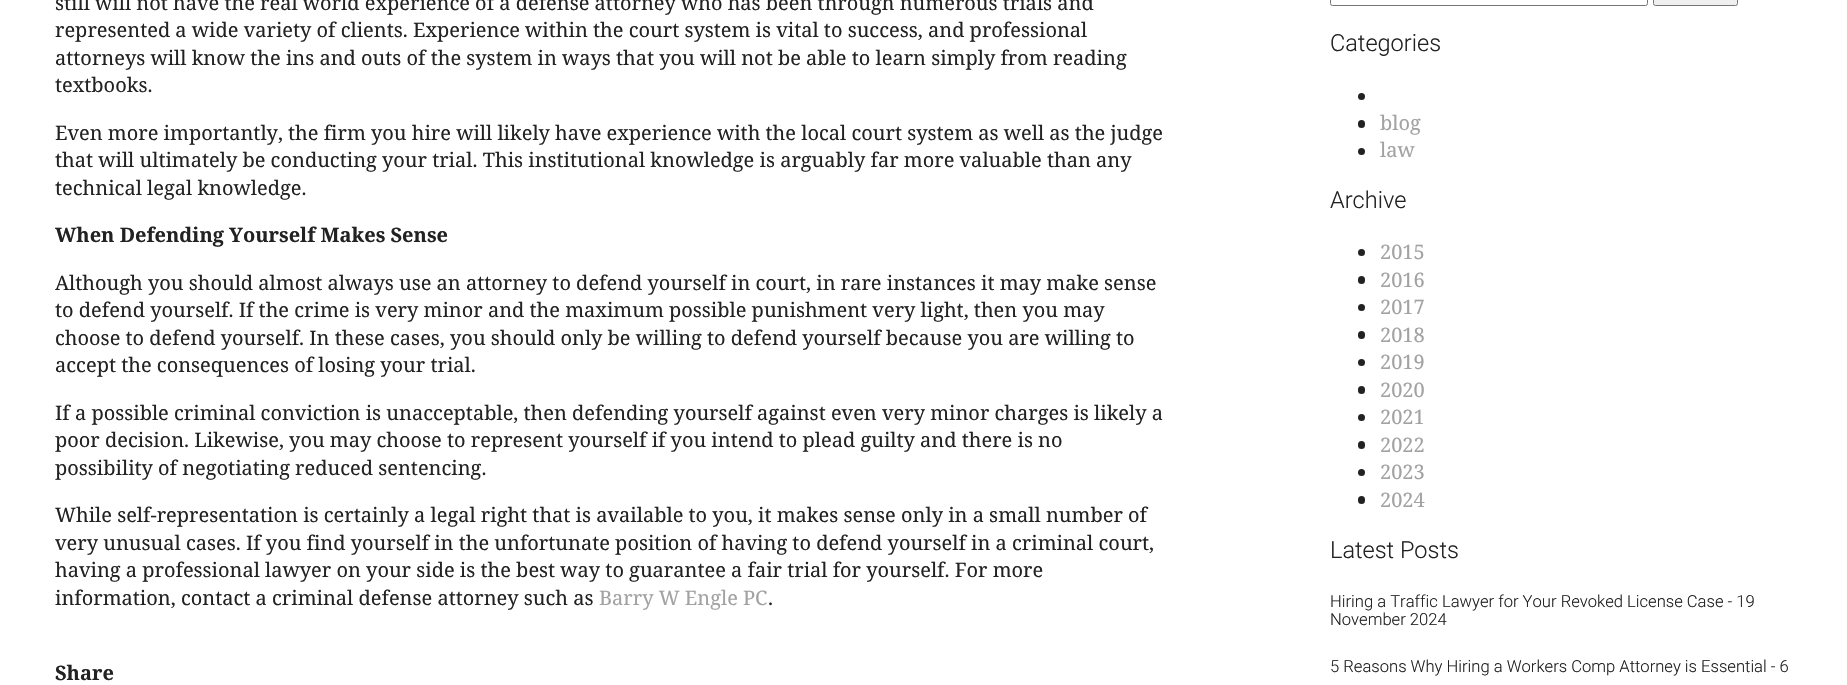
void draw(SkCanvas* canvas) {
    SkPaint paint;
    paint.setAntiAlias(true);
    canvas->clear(0xFFFFFFFF);
    SkFont font1(fontMgr->matchFamilyStyle("Noto Serif", SkFontStyle::Normal()), 20);
    font1.setSubpixel(true);
    paint.setColor(0xFF222222);
    canvas->drawString("still will not have the real world experience of a defense attorney who has been through numerous trials and", 55, 10, font1, paint);
    canvas->drawString("represented a wide variety of clients. Experience within the court system is vital to success, and professional", 55, 37, font1, paint);
    canvas->drawString("attorneys will know the ins and outs of the system in ways that you will not be able to learn simply from reading", 55, 65, font1, paint);
    canvas->drawString("textbooks.", 55, 92, font1, paint);
    canvas->drawString("Even more importantly, the firm you hire will likely have experience with the local court system as well as the judge", 55, 140, font1, paint);
    canvas->drawString("that will ultimately be conducting your trial. This institutional knowledge is arguably far more valuable than any", 55, 167, font1, paint);
    canvas->drawString("technical legal knowledge.", 55, 195, font1, paint);
    SkFont font2(fontMgr->matchFamilyStyle("Noto Serif", SkFontStyle::Bold()), 20);
    font2.setSubpixel(true);
    canvas->drawString("When Defending Yourself Makes Sense", 55, 242, font2, paint);
    canvas->drawString("Although you should almost always use an attorney to defend yourself in court, in rare instances it may make sense", 55, 290, font1, paint);
    canvas->drawString("to defend yourself. If the crime is very minor and the maximum possible punishment very light, then you may", 55, 317, font1, paint);
    canvas->drawString("choose to defend yourself. In these cases, you should only be willing to defend yourself because you are willing to", 55, 345, font1, paint);
    canvas->drawString("accept the consequences of losing your trial.", 55, 372, font1, paint);
    canvas->drawString("If a possible criminal conviction is unacceptable, then defending yourself against even very minor charges is likely a", 55, 420, font1, paint);
    canvas->drawString("poor decision. Likewise, you may choose to represent yourself if you intend to plead guilty and there is no", 55, 447, font1, paint);
    canvas->drawString("possibility of negotiating reduced sentencing.", 55, 475, font1, paint);
    canvas->drawString("While self-representation is certainly a legal right that is available to you, it makes sense only in a small number of", 55, 522, font1, paint);
    canvas->drawString("very unusual cases. If you find yourself in the unfortunate position of having to defend yourself in a criminal court,", 55, 550, font1, paint);
    canvas->drawString("having a professional lawyer on your side is the best way to guarantee a fair trial for yourself. For more", 55, 577, font1, paint);
    canvas->drawString("information, contact a criminal defense attorney such as", 55, 605, font1, paint);
    paint.setColor(0xFFA2A2A2);
    canvas->drawString("Barry W Engle PC", 599, 605, font1, paint);
    paint.setColor(0xFF222222);
    canvas->drawString(".", 768, 605, font1, paint);
    canvas->drawString("Share", 55, 680, font2, paint);
    paint.setStyle(SkPaint::kStroke_Style);
    paint.setStrokeWidth(1);
    paint.setColor(0xFF767676);
    canvas->drawRoundRect(SkRect::MakeXYWH(1330.5f, -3.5f, 317, 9), 2, 2, paint);
    paint.setStyle(SkPaint::kFill_Style);
    paint.setColor(0xFFEFEFEF);
    canvas->drawRoundRect(SkRect::MakeXYWH(1653.5f, -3.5f, 84, 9), 2, 2, paint);
    paint.setStyle(SkPaint::kStroke_Style);
    paint.setColor(0xFF767676);
    canvas->drawRoundRect(SkRect::MakeXYWH(1653.5f, -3.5f, 84, 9), 2, 2, paint);
    SkFont font3(fontMgr->matchFamilyStyle("Roboto", SkFontStyle(300, SkFontStyle::kNormal_Width, SkFontStyle::kUpright_Slant)), 23.5f);
    font3.setSubpixel(true);
    paint.setStyle(SkPaint::kFill_Style);
    paint.setColor(0xFF222222);
    canvas->drawString("Categories", 1330, 51, font3, paint);
    canvas->drawCircle(1361.5f, 96.5f, 3.5f, paint);
    canvas->drawRoundRect(SkRect::MakeXYWH(1358, 120, 7, 8), 3.5f, 3.5f, paint);
    paint.setColor(0xFFA2A2A2);
    canvas->drawString("blog", 1380, 130, font1, paint);
    paint.setColor(0xFF222222);
    canvas->drawCircle(1361.5f, 151.5f, 3.5f, paint);
    paint.setColor(0xFFA2A2A2);
    canvas->drawString("law", 1380, 157, font1, paint);
    paint.setColor(0xFF222222);
    canvas->drawString("Archive", 1330, 208, font3, paint);
    canvas->drawCircle(1361.5f, 252.5f, 3.5f, paint);
    paint.setColor(0xFFA2A2A2);
    canvas->drawString("2015", 1380, 259, font1, paint);
    paint.setColor(0xFF222222);
    canvas->drawRoundRect(SkRect::MakeXYWH(1358, 276, 7, 8), 3.5f, 3.5f, paint);
    paint.setColor(0xFFA2A2A2);
    canvas->drawString("2016", 1380, 287, font1, paint);
    paint.setColor(0xFF222222);
    canvas->drawCircle(1361.5f, 307.5f, 3.5f, paint);
    paint.setColor(0xFFA2A2A2);
    canvas->drawString("2017", 1380, 314, font1, paint);
    paint.setColor(0xFF222222);
    canvas->drawRoundRect(SkRect::MakeXYWH(1358, 331, 7, 8), 3.5f, 3.5f, paint);
    paint.setColor(0xFFA2A2A2);
    canvas->drawString("2018", 1380, 342, font1, paint);
    paint.setColor(0xFF222222);
    canvas->drawCircle(1361.5f, 362.5f, 3.5f, paint);
    paint.setColor(0xFFA2A2A2);
    canvas->drawString("2019", 1380, 369, font1, paint);
    paint.setColor(0xFF222222);
    canvas->drawRoundRect(SkRect::MakeXYWH(1358, 386, 7, 8), 3.5f, 3.5f, paint);
    paint.setColor(0xFFA2A2A2);
    canvas->drawString("2020", 1380, 397, font1, paint);
    paint.setColor(0xFF222222);
    canvas->drawCircle(1361.5f, 417.5f, 3.5f, paint);
    paint.setColor(0xFFA2A2A2);
    canvas->drawString("2021", 1380, 424, font1, paint);
    paint.setColor(0xFF222222);
    canvas->drawRoundRect(SkRect::MakeXYWH(1358, 441, 7, 8), 3.5f, 3.5f, paint);
    paint.setColor(0xFFA2A2A2);
    canvas->drawString("2022", 1380, 452, font1, paint);
    paint.setColor(0xFF222222);
    canvas->drawCircle(1361.5f, 472.5f, 3.5f, paint);
    paint.setColor(0xFFA2A2A2);
    canvas->drawString("2023", 1380, 479, font1, paint);
    paint.setColor(0xFF222222);
    canvas->drawRoundRect(SkRect::MakeXYWH(1358, 496, 7, 8), 3.5f, 3.5f, paint);
    paint.setColor(0xFFA2A2A2);
    canvas->drawString("2024", 1380, 507, font1, paint);
    paint.setColor(0xFF222222);
    canvas->drawString("Latest Posts", 1330, 558, font3, paint);
    SkFont font4(fontMgr->matchFamilyStyle("Roboto", SkFontStyle(300, SkFontStyle::kNormal_Width, SkFontStyle::kUpright_Slant)), 16.6f);
    font4.setSubpixel(true);
    canvas->drawString("Hiring a Traffic Lawyer for Your Revoked License Case - 19", 1330, 607, font4, paint);
    canvas->drawString("November 2024", 1330, 625, font4, paint);
    canvas->drawString("5 Reasons Why Hiring a Workers Comp Attorney is Essential - 6", 1330, 672, font4, paint);
}
